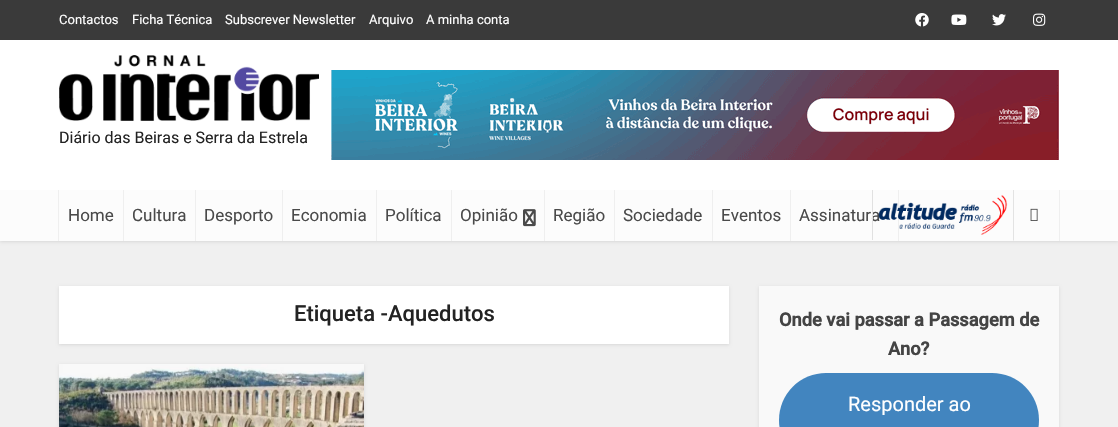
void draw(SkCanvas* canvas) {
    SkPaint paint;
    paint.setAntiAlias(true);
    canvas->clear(0xFFF0F0F0);
    paint.setColor(0x1A000000);
    paint.setMaskFilter(SkMaskFilter::MakeBlur(kNormal_SkBlurStyle, 1.5f));
    canvas->drawRect(SkRect::MakeXYWH(0, 1, 1118, 241), paint);
    paint.setMaskFilter(nullptr);
    paint.setColor(0xFFFFFFFF);
    canvas->drawRect(SkRect::MakeXYWH(0, 40, 1118, 150), paint);
    paint.setColor(0xFF3A3A3A);
    canvas->drawRect(SkRect::MakeXYWH(0, 0, 1118, 40), paint);
    SkFont font1(fontMgr->matchFamilyStyle("Roboto", SkFontStyle::Normal()), 13);
    font1.setSubpixel(true);
    paint.setColor(0xFFFFFFFF);
    canvas->drawString("Contactos", 59, 24, font1, paint);
    canvas->drawString("Ficha Técnica", 132, 24, font1, paint);
    canvas->drawString("Subscrever Newsletter", 225, 24, font1, paint);
    canvas->drawString("Arquivo", 369, 24, font1, paint);
    canvas->drawString("A minha conta", 426, 24, font1, paint);
    canvas->drawImageRect(SkImages::DeferredFromEncodedData(SkData::MakeFromFileName("img1.png")), SkRect::MakeXYWH(915, 13, 14, 14), SkSamplingOptions());
    canvas->drawImageRect(SkImages::DeferredFromEncodedData(SkData::MakeFromFileName("img2.png")), SkRect::MakeXYWH(951, 14, 16, 11), SkSamplingOptions());
    canvas->drawImageRect(SkImages::DeferredFromEncodedData(SkData::MakeFromFileName("img3.png")), SkRect::MakeXYWH(992, 14, 14, 12), SkSamplingOptions());
    canvas->drawImageRect(SkImages::DeferredFromEncodedData(SkData::MakeFromFileName("img4.png")), SkRect::MakeXYWH(1033, 13, 13, 13), SkSamplingOptions());
    canvas->drawImageRect(SkImages::DeferredFromEncodedData(SkData::MakeFromFileName("img5.png")), SkRect::MakeXYWH(59, 55, 260, 66), SkSamplingOptions());
    SkFont font2(fontMgr->matchFamilyStyle("Roboto", SkFontStyle::Normal()), 16);
    font2.setSubpixel(true);
    paint.setColor(0xFF232323);
    canvas->drawString("Diário das Beiras e Serra da Estrela", 59, 143, font2, paint);
    canvas->drawImageRect(SkImages::DeferredFromEncodedData(SkData::MakeFromFileName("img6.png")), SkRect::MakeXYWH(331, 70, 728, 90), SkSamplingOptions());
    paint.setColor(0xFFFCFCFC);
    canvas->drawRect(SkRect::MakeXYWH(0, 190, 1118, 51), paint);
    paint.setColor(0xFFEFEFEF);
    canvas->drawRect(SkRect::MakeXYWH(1013, 240, 1, 1), paint);
    canvas->drawRect(SkRect::MakeXYWH(123, 190, 1, 51), paint);
    canvas->drawRect(SkRect::MakeXYWH(58, 190, 1, 51), paint);
    SkFont font3(fontMgr->matchFamilyStyle("Roboto", SkFontStyle::Normal()), 17);
    font3.setSubpixel(true);
    paint.setColor(0xFF4A4A4A);
    canvas->drawString("Home", 68, 221, font3, paint);
    paint.setColor(0xFFEFEFEF);
    canvas->drawRect(SkRect::MakeXYWH(195, 190, 1, 51), paint);
    paint.setColor(0xFF4A4A4A);
    canvas->drawString("Cultura", 132, 221, font3, paint);
    paint.setColor(0xFFEFEFEF);
    canvas->drawRect(SkRect::MakeXYWH(282, 190, 1, 51), paint);
    paint.setColor(0xFF4A4A4A);
    canvas->drawString("Desporto", 204, 221, font3, paint);
    paint.setColor(0xFFEFEFEF);
    canvas->drawRect(SkRect::MakeXYWH(376, 190, 1, 51), paint);
    paint.setColor(0xFF4A4A4A);
    canvas->drawString("Economia", 291, 221, font3, paint);
    paint.setColor(0xFFEFEFEF);
    canvas->drawRect(SkRect::MakeXYWH(451, 190, 1, 51), paint);
    paint.setColor(0xFF4A4A4A);
    canvas->drawString("Política", 385, 221, font3, paint);
    paint.setColor(0xFFEFEFEF);
    canvas->drawRect(SkRect::MakeXYWH(544, 190, 1, 51), paint);
    paint.setColor(0xFF4A4A4A);
    canvas->drawString("Opinião", 460, 221, font3, paint);
    canvas->drawImageRect(SkImages::DeferredFromEncodedData(SkData::MakeFromFileName("img7.png")), SkRect::MakeXYWH(523, 209, 13, 18), SkSamplingOptions());
    paint.setColor(0xFFEFEFEF);
    canvas->drawRect(SkRect::MakeXYWH(614, 190, 1, 51), paint);
    paint.setColor(0xFF4A4A4A);
    canvas->drawString("Região", 553, 221, font3, paint);
    paint.setColor(0xFFEFEFEF);
    canvas->drawRect(SkRect::MakeXYWH(712, 190, 1, 51), paint);
    paint.setColor(0xFF4A4A4A);
    canvas->drawString("Sociedade", 623, 221, font3, paint);
    paint.setColor(0xFFEFEFEF);
    canvas->drawRect(SkRect::MakeXYWH(790, 190, 1, 51), paint);
    paint.setColor(0xFF4A4A4A);
    canvas->drawString("Eventos", 721, 221, font3, paint);
    paint.setColor(0xFFEFEFEF);
    canvas->drawRect(SkRect::MakeXYWH(898, 190, 1, 51), paint);
    paint.setColor(0xFF4A4A4A);
    canvas->drawString("Assinatura", 799, 221, font3, paint);
    paint.setColor(0xFFE1E1E1);
    canvas->drawRect(SkRect::MakeXYWH(872, 190, 1, 50), paint);
    paint.setColor(0xFFE3E3E3);
    canvas->drawRect(SkRect::MakeXYWH(1013, 190, 1, 50), paint);
    canvas->drawImageRect(SkImages::DeferredFromEncodedData(SkData::MakeFromFileName("img8.png")), SkRect::MakeXYWH(878, 195, 130, 40), SkSamplingOptions());
    paint.setColor(0xFFEFEFEF);
    canvas->drawRect(SkRect::MakeXYWH(1059, 190, 1, 51), paint);
    canvas->drawImageRect(SkImages::DeferredFromEncodedData(SkData::MakeFromFileName("img9.png")), SkRect::MakeXYWH(1030, 208, 8, 13), SkSamplingOptions());
    paint.setColor(0x1A000000);
    paint.setMaskFilter(SkMaskFilter::MakeBlur(kNormal_SkBlurStyle, 1.5f));
    canvas->drawRect(SkRect::MakeXYWH(59, 287, 670, 58), paint);
    paint.setMaskFilter(nullptr);
    paint.setColor(0xFFFFFFFF);
    canvas->drawRect(SkRect::MakeXYWH(59, 286, 670, 58), paint);
    SkFont font4(fontMgr->matchFamilyStyle("Roboto", SkFontStyle(500, SkFontStyle::kNormal_Width, SkFontStyle::kUpright_Slant)), 22);
    font4.setSubpixel(true);
    paint.setColor(0xFF232323);
    canvas->drawString("Etiqueta -Aquedutos", 294, 321, font4, paint);
    paint.setColor(0x1A000000);
    paint.setMaskFilter(SkMaskFilter::MakeBlur(kNormal_SkBlurStyle, 1.5f));
    canvas->drawRect(SkRect::MakeXYWH(59, 365, 305, 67), paint);
    paint.setMaskFilter(nullptr);
    canvas->drawImageRect(SkImages::DeferredFromEncodedData(SkData::MakeFromFileName("img10.png")), SkRect::MakeXYWH(59, 364, 305, 63), SkSamplingOptions());
    paint.setMaskFilter(SkMaskFilter::MakeBlur(kNormal_SkBlurStyle, 1.5f));
    canvas->drawRect(SkRect::MakeXYWH(759, 287, 300, 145), paint);
    paint.setMaskFilter(nullptr);
    paint.setColor(0xFFF9F9F9);
    canvas->drawRect(SkRect::MakeXYWH(759, 286, 300, 141), paint);
    SkFont font5(fontMgr->matchFamilyStyle("Roboto", SkFontStyle::Bold()), 18.25f);
    font5.setSubpixel(true);
    paint.setColor(0xFF444444);
    canvas->drawString("Onde vai passar a Passagem de", 779, 326, font5, paint);
    canvas->drawString("Ano?", 888, 355, font5, paint);
    paint.setColor(0xFF4285BF);
    canvas->drawRoundRect(SkRect::MakeXYWH(779, 373, 260, 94), 47, 47, paint);
    SkFont font6(fontMgr->matchFamilyStyle("Roboto", SkFontStyle::Normal()), 20);
    font6.setSubpixel(true);
    paint.setColor(0xFFFFFFFF);
    canvas->drawString("Responder ao", 848, 411, font6, paint);
}
